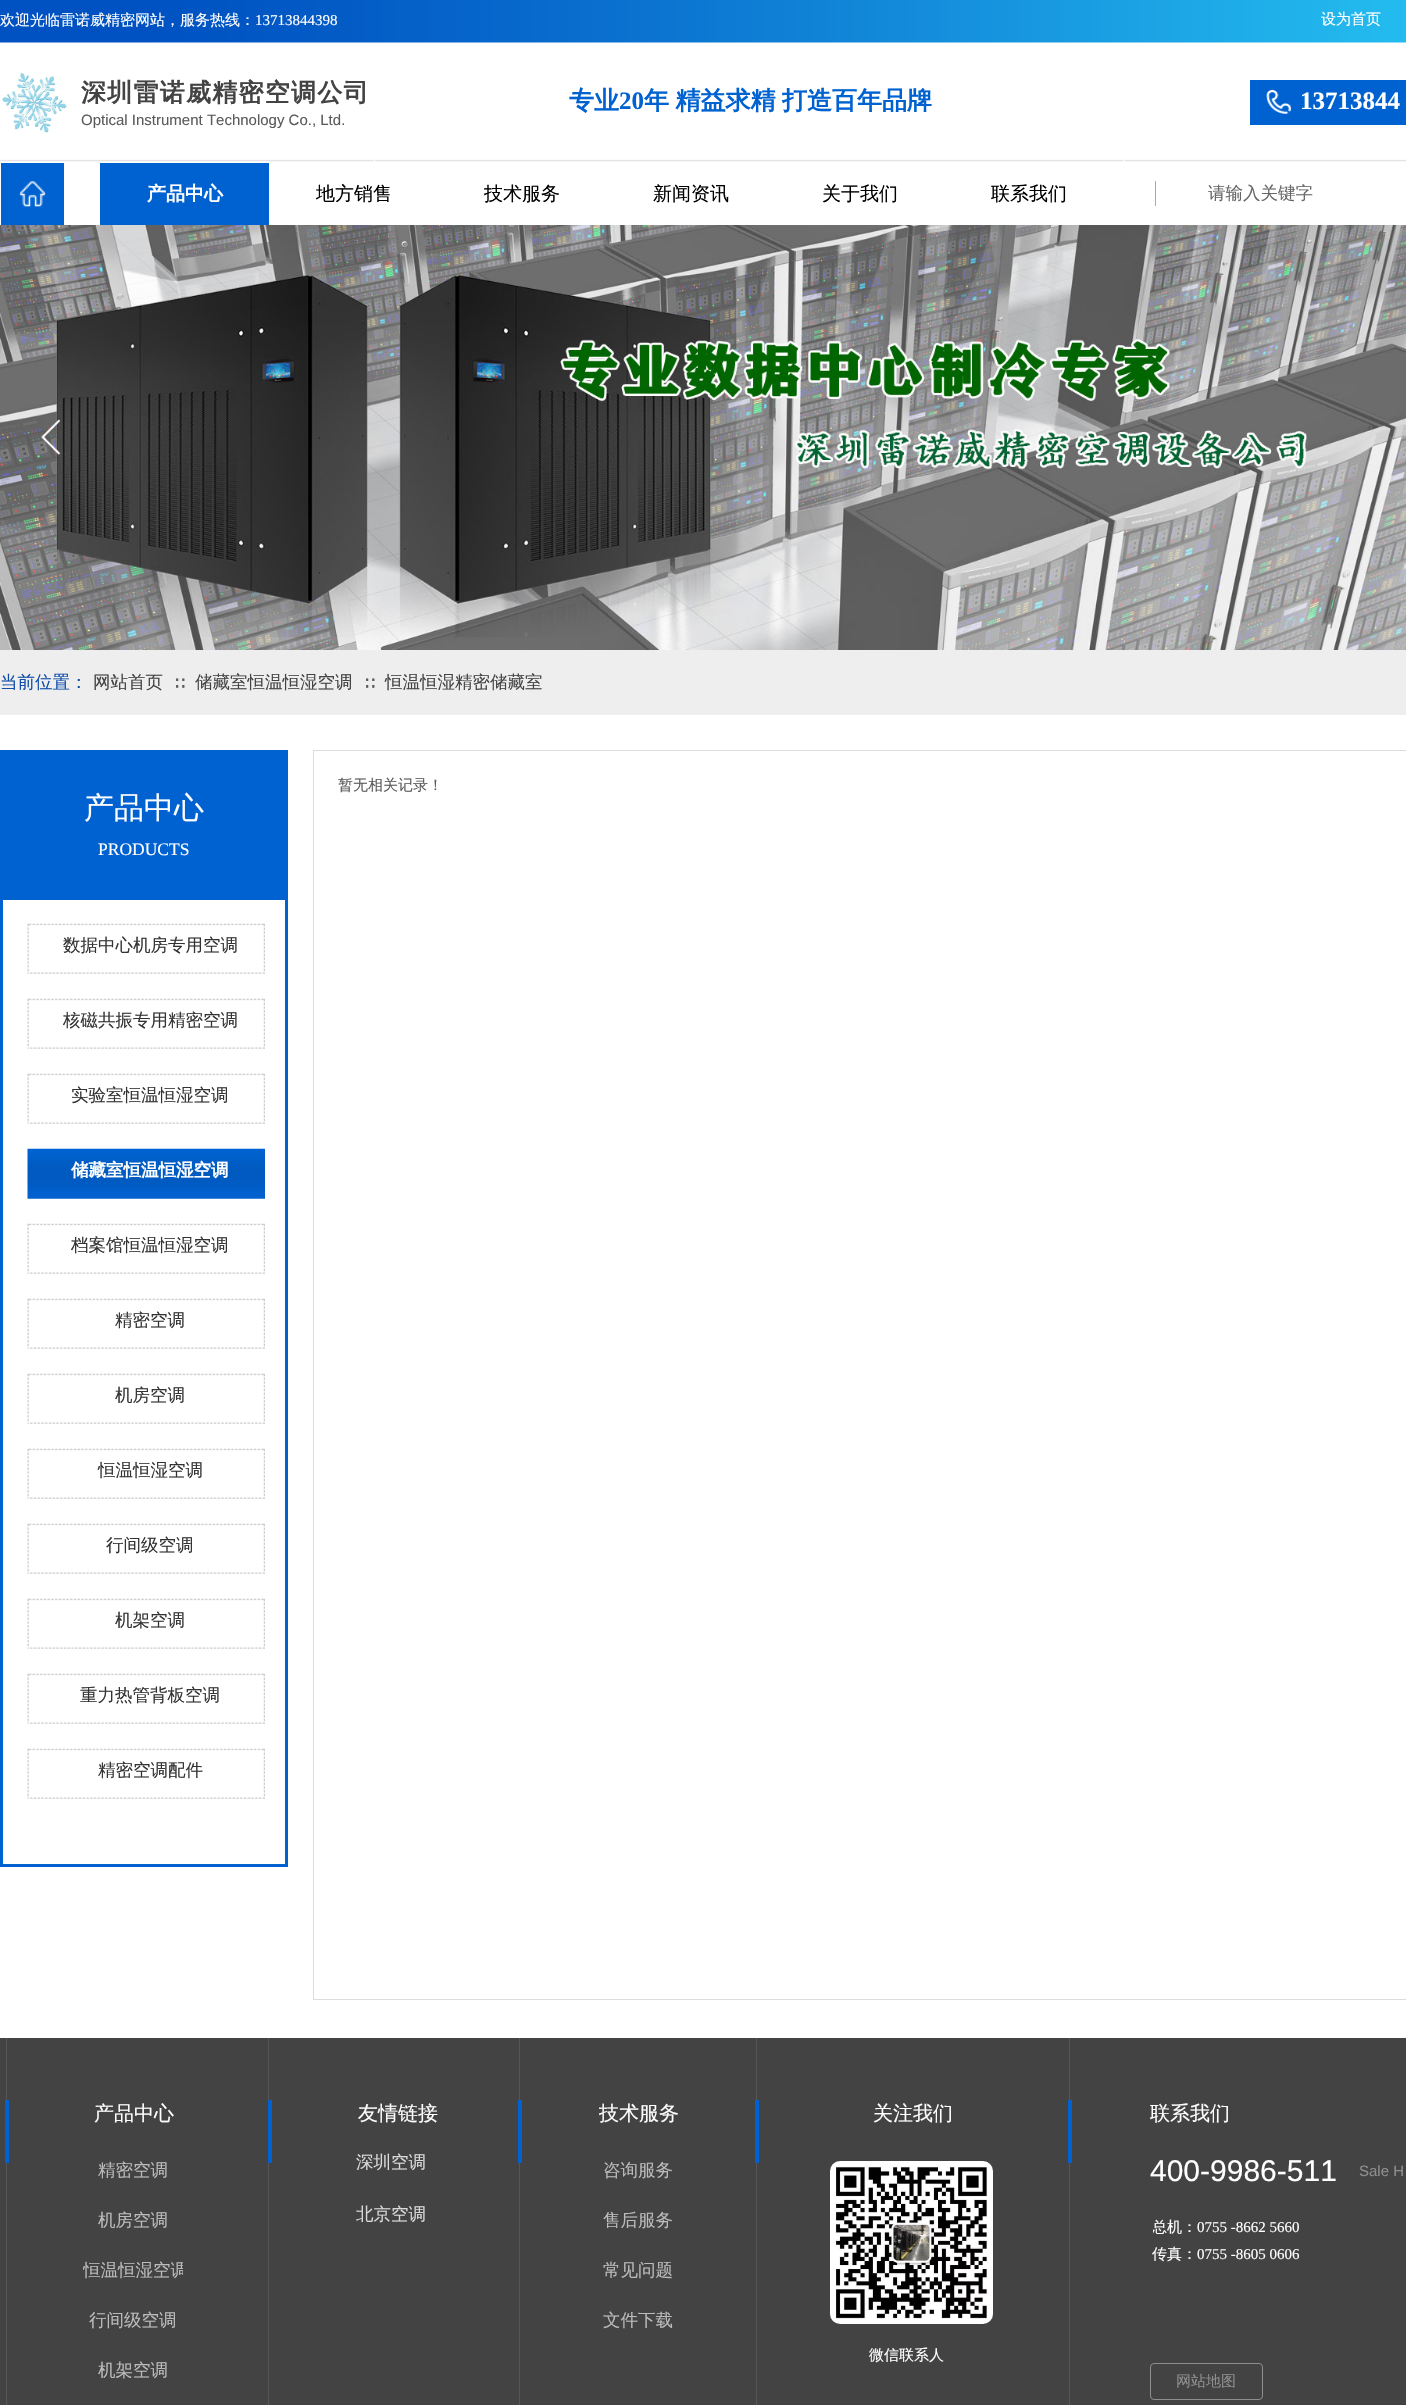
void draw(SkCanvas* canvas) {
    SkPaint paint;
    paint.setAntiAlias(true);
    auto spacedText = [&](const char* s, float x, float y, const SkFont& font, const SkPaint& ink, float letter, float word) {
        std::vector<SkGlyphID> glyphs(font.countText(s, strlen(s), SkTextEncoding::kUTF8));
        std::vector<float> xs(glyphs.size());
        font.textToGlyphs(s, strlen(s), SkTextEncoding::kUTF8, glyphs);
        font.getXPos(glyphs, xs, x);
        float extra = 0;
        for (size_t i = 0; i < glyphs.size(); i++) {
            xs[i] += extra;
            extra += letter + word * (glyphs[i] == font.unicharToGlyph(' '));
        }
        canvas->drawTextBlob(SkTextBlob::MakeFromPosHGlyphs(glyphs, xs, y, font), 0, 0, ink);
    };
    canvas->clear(0xFFFFFFFF);
    canvas->drawImageRect(SkImages::DeferredFromEncodedData(SkData::MakeFromFileName("img1.png")), SkRect::MakeXYWH(0, 0, 1406, 43), SkSamplingOptions());
    SkFont font1(fontMgr->matchFamilyStyle("WenQuanYi Zen Hei", SkFontStyle(500, SkFontStyle::kNormal_Width, SkFontStyle::kUpright_Slant)), 15);
    font1.setSubpixel(true);
    paint.setColor(0xFFFFFFFF);
    canvas->drawString("欢迎光临雷诺威精密网站，服务热线：", 0, 25, font1, paint);
    SkFont font2(fontMgr->matchFamilyStyle("Liberation Serif", SkFontStyle::Normal()), 15);
    font2.setSubpixel(true);
    canvas->drawString("13713844398", 255, 25, font2, paint);
    canvas->drawString("设为首页", 1321, 24, font1, paint);
    canvas->drawImageRect(SkImages::DeferredFromEncodedData(SkData::MakeFromFileName("img2.png")), SkRect::MakeXYWH(0, 42, 1406, 120), SkSamplingOptions());
    canvas->drawImageRect(SkImages::DeferredFromEncodedData(SkData::MakeFromFileName("img3.png")), SkRect::MakeXYWH(2, 72, 65, 61), SkSamplingOptions());
    SkFont font3(fontMgr->matchFamilyStyle("WenQuanYi Zen Hei", SkFontStyle::Bold()), 25);
    font3.setSubpixel(true);
    paint.setColor(0xFF434343);
    spacedText("深圳雷诺威精密空调公司", 81, 101, font3, paint, 1.25f, 0);
    paint.setColor(0xFF0062D0);
    canvas->drawString("专业", 569, 109, font3, paint);
    SkFont font4(fontMgr->matchFamilyStyle("Liberation Serif", SkFontStyle::Bold()), 25);
    font4.setSubpixel(true);
    canvas->drawString("20", 619, 109, font4, paint);
    spacedText("年 精益求精 打造百年品牌", 644, 109, font3, paint, 0, -1);
    canvas->drawRect(SkRect::MakeXYWH(1250, 80, 156, 45), paint);
    canvas->drawImageRect(SkImages::DeferredFromEncodedData(SkData::MakeFromFileName("img4.png")), SkRect::MakeXYWH(1266, 90, 26, 24), SkSamplingOptions());
    paint.setColor(0xFFFFFFFF);
    canvas->drawString("13713844", 1300, 109, font4, paint);
    SkFont font5(fontMgr->matchFamilyStyle("Liberation Sans", SkFontStyle::Normal()), 15);
    font5.setSubpixel(true);
    paint.setColor(0xFF5A5A5A);
    canvas->drawString("Optical Instrument Technology Co., Ltd.", 81, 125, font5, paint);
    paint.setColor(0xFF0062D0);
    canvas->drawRect(SkRect::MakeXYWH(1, 163, 63, 62), paint);
    canvas->drawImageRect(SkImages::DeferredFromEncodedData(SkData::MakeFromFileName("img5.png")), SkRect::MakeXYWH(19, 181, 27, 26), SkSamplingOptions());
    canvas->drawRect(SkRect::MakeXYWH(100, 163, 169, 62), paint);
    SkFont font6(fontMgr->matchFamilyStyle("WenQuanYi Zen Hei", SkFontStyle::Bold()), 19);
    font6.setSubpixel(true);
    paint.setColor(0xFFFFFFFF);
    canvas->drawString("产品中心", 147, 200, font6, paint);
    SkFont font7(fontMgr->matchFamilyStyle("WenQuanYi Zen Hei", SkFontStyle(500, SkFontStyle::kNormal_Width, SkFontStyle::kUpright_Slant)), 19);
    font7.setSubpixel(true);
    paint.setColor(0xFF000000);
    canvas->drawString("地方销售", 316, 200, font7, paint);
    canvas->drawString("技术服务", 484, 200, font7, paint);
    canvas->drawString("新闻资讯", 653, 200, font7, paint);
    canvas->drawString("关于我们", 822, 200, font7, paint);
    canvas->drawString("联系我们", 991, 200, font7, paint);
    paint.setColor(0xFFAAAAAA);
    canvas->drawRect(SkRect::MakeXYWH(1155, 181, 1, 25), paint);
    SkFont font8(fontMgr->matchFamilyStyle("WenQuanYi Zen Hei", SkFontStyle(500, SkFontStyle::kNormal_Width, SkFontStyle::kUpright_Slant)), 17.5f);
    font8.setSubpixel(true);
    paint.setColor(0xFF666666);
    canvas->drawString("请输入关键字", 1208, 199, font8, paint);
    canvas->drawImageRect(SkImages::DeferredFromEncodedData(SkData::MakeFromFileName("img6.png")), SkRect::MakeXYWH(0, 225, 1406, 425), SkSamplingOptions());
    canvas->drawImageRect(SkImages::DeferredFromEncodedData(SkData::MakeFromFileName("img7.png")), SkRect::MakeXYWH(41, 419, 20, 36), SkSamplingOptions());
    paint.setColor(0xFFEEEEEE);
    canvas->drawRect(SkRect::MakeXYWH(0, 650, 1406, 65), paint);
    paint.setColor(0xFF104EAA);
    canvas->drawString("当前位置：", 0, 688, font8, paint);
    paint.setColor(0xFF434343);
    canvas->drawString("网站首页", 93, 688, font8, paint);
    paint.setColor(0xFF5A5A5A);
    canvas->drawString("∷", 173, 688, font1, paint);
    paint.setColor(0xFF434343);
    canvas->drawString("储藏室恒温恒湿空调", 195, 688, font8, paint);
    paint.setColor(0xFF5A5A5A);
    canvas->drawString("∷", 363, 688, font1, paint);
    paint.setColor(0xFF434343);
    canvas->drawString("恒温恒湿精密储藏室", 385, 688, font8, paint);
    paint.setStyle(SkPaint::kStroke_Style);
    paint.setStrokeWidth(1);
    paint.setColor(0xFFDDDDDD);
    canvas->drawRect(SkRect::MakeXYWH(313.5f, 750.5f, 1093, 1249), paint);
    paint.setStyle(SkPaint::kFill_Style);
    paint.setColor(0xFF5A5A5A);
    canvas->drawString("暂无相关记录！", 338, 790, font1, paint);
    paint.setColor(0xFF0062D1);
    canvas->drawRect(SkRect::MakeXYWH(285, 750, 3, 1116), paint);
    canvas->drawRect(SkRect::MakeXYWH(0, 1864, 288, 3), paint);
    canvas->drawRect(SkRect::MakeXYWH(0, 750, 3, 1116), paint);
    canvas->drawRect(SkRect::MakeXYWH(3, 750, 282, 150), paint);
    SkFont font9(fontMgr->matchFamilyStyle("WenQuanYi Zen Hei", SkFontStyle(500, SkFontStyle::kNormal_Width, SkFontStyle::kUpright_Slant)), 30);
    font9.setSubpixel(true);
    paint.setColor(0xFFFFFFFF);
    canvas->drawString("产品中心", 84, 818, font9, paint);
    SkFont font10(fontMgr->matchFamilyStyle("Liberation Serif", SkFontStyle::Normal()), 17.5f);
    font10.setSubpixel(true);
    canvas->drawString("PRODUCTS", 98, 855, font10, paint);
    canvas->drawImageRect(SkImages::DeferredFromEncodedData(SkData::MakeFromFileName("img8.png")), SkRect::MakeXYWH(27, 923, 238, 51), SkSamplingOptions());
    paint.setColor(0xFF333333);
    canvas->drawString("数据中心机房专用空调", 63, 951, font8, paint);
    canvas->drawImageRect(SkImages::DeferredFromEncodedData(SkData::MakeFromFileName("img8.png")), SkRect::MakeXYWH(27, 998, 238, 51), SkSamplingOptions());
    canvas->drawString("核磁共振专用精密空调", 63, 1026, font8, paint);
    canvas->drawImageRect(SkImages::DeferredFromEncodedData(SkData::MakeFromFileName("img8.png")), SkRect::MakeXYWH(27, 1073, 238, 51), SkSamplingOptions());
    canvas->drawString("实验室恒温恒湿空调", 71, 1101, font8, paint);
    canvas->drawImageRect(SkImages::DeferredFromEncodedData(SkData::MakeFromFileName("img9.png")), SkRect::MakeXYWH(27, 1148, 238, 51), SkSamplingOptions());
    SkFont font11(fontMgr->matchFamilyStyle("WenQuanYi Zen Hei", SkFontStyle::Bold()), 17.5f);
    font11.setSubpixel(true);
    paint.setColor(0xFFFFFFFF);
    canvas->drawString("储藏室恒温恒湿空调", 71, 1176, font11, paint);
    canvas->drawImageRect(SkImages::DeferredFromEncodedData(SkData::MakeFromFileName("img8.png")), SkRect::MakeXYWH(27, 1223, 238, 51), SkSamplingOptions());
    paint.setColor(0xFF333333);
    canvas->drawString("档案馆恒温恒湿空调", 71, 1251, font8, paint);
    canvas->drawImageRect(SkImages::DeferredFromEncodedData(SkData::MakeFromFileName("img8.png")), SkRect::MakeXYWH(27, 1298, 238, 51), SkSamplingOptions());
    canvas->drawString("精密空调", 115, 1326, font8, paint);
    canvas->drawImageRect(SkImages::DeferredFromEncodedData(SkData::MakeFromFileName("img8.png")), SkRect::MakeXYWH(27, 1373, 238, 51), SkSamplingOptions());
    canvas->drawString("机房空调", 115, 1401, font8, paint);
    canvas->drawImageRect(SkImages::DeferredFromEncodedData(SkData::MakeFromFileName("img8.png")), SkRect::MakeXYWH(27, 1448, 238, 51), SkSamplingOptions());
    canvas->drawString("恒温恒湿空调", 98, 1476, font8, paint);
    canvas->drawImageRect(SkImages::DeferredFromEncodedData(SkData::MakeFromFileName("img8.png")), SkRect::MakeXYWH(27, 1523, 238, 51), SkSamplingOptions());
    canvas->drawString("行间级空调", 106, 1551, font8, paint);
    canvas->drawImageRect(SkImages::DeferredFromEncodedData(SkData::MakeFromFileName("img8.png")), SkRect::MakeXYWH(27, 1598, 238, 51), SkSamplingOptions());
    canvas->drawString("机架空调", 115, 1626, font8, paint);
    canvas->drawImageRect(SkImages::DeferredFromEncodedData(SkData::MakeFromFileName("img8.png")), SkRect::MakeXYWH(27, 1673, 238, 51), SkSamplingOptions());
    canvas->drawString("重力热管背板空调", 80, 1701, font8, paint);
    canvas->drawImageRect(SkImages::DeferredFromEncodedData(SkData::MakeFromFileName("img8.png")), SkRect::MakeXYWH(27, 1748, 238, 51), SkSamplingOptions());
    canvas->drawString("精密空调配件", 98, 1776, font8, paint);
    paint.setColor(0xFF434343);
    canvas->drawRect(SkRect::MakeXYWH(0, 2038, 1406, 367), paint);
    paint.setColor(0xFF565656);
    canvas->drawRect(SkRect::MakeXYWH(6, 2038, 1, 367), paint);
    canvas->drawRect(SkRect::MakeXYWH(268, 2038, 1, 367), paint);
    canvas->drawRect(SkRect::MakeXYWH(519, 2038, 1, 367), paint);
    canvas->drawRect(SkRect::MakeXYWH(756, 2038, 1, 367), paint);
    canvas->drawRect(SkRect::MakeXYWH(1069, 2038, 1, 367), paint);
    paint.setColor(0xFF0062D2);
    canvas->drawRect(SkRect::MakeXYWH(5, 2100, 4, 63), paint);
    SkFont font12(fontMgr->matchFamilyStyle("WenQuanYi Zen Hei", SkFontStyle(500, SkFontStyle::kNormal_Width, SkFontStyle::kUpright_Slant)), 20);
    font12.setSubpixel(true);
    paint.setColor(0xFFFFFFFF);
    canvas->drawString("产品中心", 94, 2120, font12, paint);
    paint.setColor(0xFF0062D2);
    canvas->drawRect(SkRect::MakeXYWH(268, 2100, 4, 63), paint);
    paint.setColor(0xFFFFFFFF);
    canvas->drawString("友情链接", 358, 2120, font12, paint);
    paint.setColor(0xFF0062D2);
    canvas->drawRect(SkRect::MakeXYWH(518, 2100, 4, 63), paint);
    paint.setColor(0xFFFFFFFF);
    canvas->drawString("技术服务", 599, 2120, font12, paint);
    paint.setColor(0xFF0062D2);
    canvas->drawRect(SkRect::MakeXYWH(755, 2100, 4, 63), paint);
    paint.setColor(0xFFFFFFFF);
    canvas->drawString("关注我们", 873, 2120, font12, paint);
    paint.setColor(0xFF0062D2);
    canvas->drawRect(SkRect::MakeXYWH(1068, 2100, 4, 63), paint);
    paint.setColor(0xFFFFFFFF);
    canvas->drawString("联系我们", 1150, 2120, font12, paint);
    paint.setColor(0xFFBBBBBB);
    canvas->drawString("精密空调", 98, 2176, font8, paint);
    canvas->drawString("机房空调", 98, 2226, font8, paint);
    canvas->save();
    canvas->clipRect(SkRect::MakeXYWH(83, 2250, 100, 43));
    canvas->drawString("恒温恒湿空调", 83, 2276, font8, paint);
    canvas->restore();
    canvas->drawString("行间级空调", 89, 2326, font8, paint);
    canvas->drawString("机架空调", 98, 2376, font8, paint);
    paint.setColor(0xFFD9D9D9);
    canvas->drawString("深圳空调", 356, 2168, font8, paint);
    canvas->drawString("北京空调", 356, 2220, font8, paint);
    paint.setColor(0xFFBBBBBB);
    canvas->drawString("咨询服务", 603, 2176, font8, paint);
    canvas->drawString("售后服务", 603, 2226, font8, paint);
    canvas->drawString("常见问题", 603, 2276, font8, paint);
    canvas->drawString("文件下载", 603, 2326, font8, paint);
    paint.setColor(0xFFFFFFFF);
    canvas->drawRoundRect(SkRect::MakeXYWH(830, 2161, 163, 163), 10, 10, paint);
    canvas->drawImageRect(SkImages::DeferredFromEncodedData(SkData::MakeFromFileName("img10.png")), SkRect::MakeXYWH(832, 2164, 156, 157), SkSamplingOptions());
    SkFont font13(fontMgr->matchFamilyStyle("Liberation Sans", SkFontStyle::Normal()), 30);
    font13.setSubpixel(true);
    canvas->drawString("400-9986-511", 1150, 2181, font13, paint);
    paint.setColor(0xFF8E8E8E);
    canvas->drawString("Sale H", 1359, 2176, font5, paint);
    canvas->save();
    canvas->clipRect(SkRect::MakeXYWH(1153, 2194, 253, 131));
    paint.setColor(0xFFFFFFFF);
    canvas->drawString("总机：", 1152, 2232, font1, paint);
    canvas->restore();
    canvas->drawString("0755 -8662 5660", 1197, 2232, font2, paint);
    canvas->drawString("传真：", 1152, 2259, font1, paint);
    canvas->drawString("0755 -8605 0606", 1197, 2259, font2, paint);
    canvas->drawString("微信联系人", 869, 2360, font1, paint);
    paint.setStyle(SkPaint::kStroke_Style);
    paint.setColor(0xFF8E8E8E);
    canvas->drawRoundRect(SkRect::MakeXYWH(1150.5f, 2363.5f, 112, 36), 3.5f, 3.5f, paint);
    paint.setStyle(SkPaint::kFill_Style);
    canvas->drawString("网站地图", 1176, 2386, font1, paint);
}
